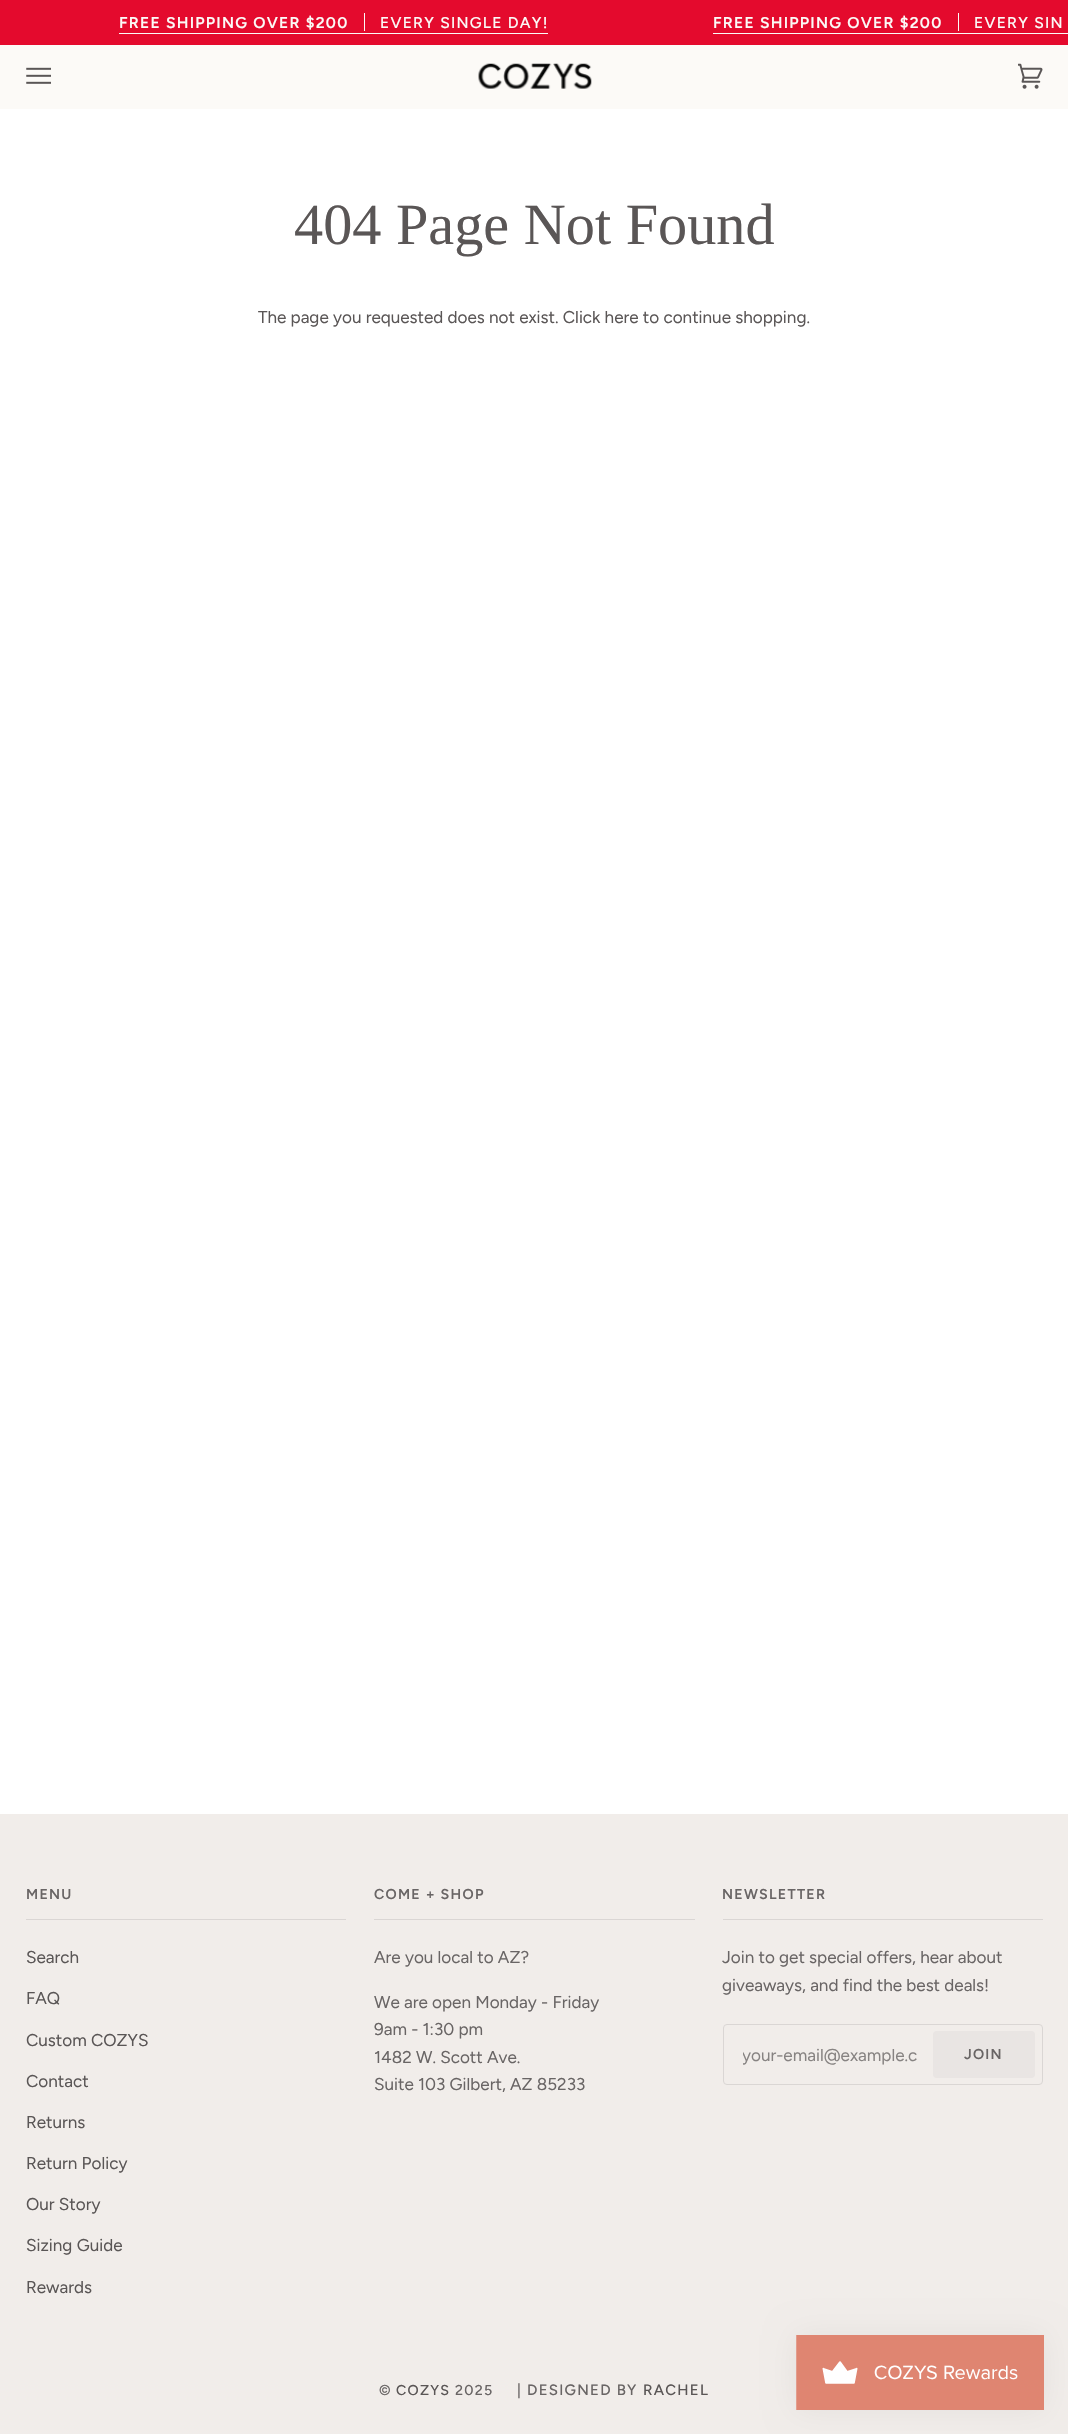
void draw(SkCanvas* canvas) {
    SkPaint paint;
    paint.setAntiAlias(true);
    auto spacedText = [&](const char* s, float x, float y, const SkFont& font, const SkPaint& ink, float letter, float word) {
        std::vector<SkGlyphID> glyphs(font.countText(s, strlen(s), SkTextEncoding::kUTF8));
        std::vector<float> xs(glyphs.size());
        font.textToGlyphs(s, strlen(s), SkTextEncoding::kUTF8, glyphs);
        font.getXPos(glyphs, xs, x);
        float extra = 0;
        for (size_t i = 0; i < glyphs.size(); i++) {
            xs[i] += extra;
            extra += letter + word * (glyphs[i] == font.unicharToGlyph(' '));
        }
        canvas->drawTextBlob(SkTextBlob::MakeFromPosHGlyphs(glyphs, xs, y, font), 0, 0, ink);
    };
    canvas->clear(0xFFFFFFFF);
    paint.setColor(0xFFE40A2D);
    canvas->drawRect(SkRect::MakeXYWH(0, 0, 1068, 45), paint);
    SkFont font1(fontMgr->matchFamilyStyle("Figtree", SkFontStyle(600, SkFontStyle::kNormal_Width, SkFontStyle::kUpright_Slant)), 15.6f);
    font1.setSubpixel(true);
    paint.setColor(0xFFFCFAF7);
    spacedText("FREE SHIPPING OVER $200", 119, 28, font1, paint, 1.25f, 0);
    canvas->drawRect(SkRect::MakeXYWH(364, 13, 1, 18), paint);
    SkFont font2(fontMgr->matchFamilyStyle("Figtree", SkFontStyle(500, SkFontStyle::kNormal_Width, SkFontStyle::kUpright_Slant)), 15.6f);
    font2.setSubpixel(true);
    spacedText("EVERY SINGLE DAY!", 380, 28, font2, paint, 1.25f, 0);
    canvas->drawRect(SkRect::MakeXYWH(119, 33, 429, 1), paint);
    spacedText("FREE SHIPPING OVER $200", 713, 28, font1, paint, 1.25f, 0);
    canvas->drawRect(SkRect::MakeXYWH(958, 13, 1, 18), paint);
    spacedText("EVERY SIN", 974, 28, font2, paint, 1.25f, 0);
    canvas->drawRect(SkRect::MakeXYWH(713, 33, 355, 1), paint);
    canvas->drawRect(SkRect::MakeXYWH(0, 45, 1068, 64), paint);
    canvas->drawImageRect(SkImages::DeferredFromEncodedData(SkData::MakeFromFileName("img1.png")), SkRect::MakeXYWH(26, 67, 25, 17), SkSamplingOptions());
    canvas->drawImageRect(SkImages::DeferredFromEncodedData(SkData::MakeFromFileName("img2.png")), SkRect::MakeXYWH(478, 63, 114, 26), SkSamplingOptions());
    canvas->drawImageRect(SkImages::DeferredFromEncodedData(SkData::MakeFromFileName("img3.png")), SkRect::MakeXYWH(1018, 63, 25, 26), SkSamplingOptions());
    SkFont font3(fontMgr->matchFamilyStyle("Liberation Serif", SkFontStyle::Normal()), 58.25f);
    font3.setSubpixel(true);
    paint.setColor(0xFF5A5656);
    canvas->drawString("404 Page Not Found", 294, 244, font3, paint);
    SkFont font4(fontMgr->matchFamilyStyle("Figtree", SkFontStyle::Normal()), 17.1f);
    font4.setSubpixel(true);
    canvas->drawString("The page you requested does not exist. Click here to continue shopping.", 258, 323, font4, paint);
    paint.setColor(0xFFF1EDEA);
    canvas->drawRect(SkRect::MakeXYWH(0, 1814, 1068, 620), paint);
    paint.setColor(0xFFDAD6D4);
    canvas->drawRect(SkRect::MakeXYWH(26, 1919, 320, 1), paint);
    SkFont font5(fontMgr->matchFamilyStyle("Figtree", SkFontStyle(600, SkFontStyle::kNormal_Width, SkFontStyle::kUpright_Slant)), 14.25f);
    font5.setSubpixel(true);
    paint.setColor(0xFF696565);
    spacedText("MENU", 26, 1899, font5, paint, 1.25f, 0);
    paint.setColor(0xFF5A5656);
    canvas->drawString("Search", 26, 1963, font4, paint);
    canvas->drawString("FAQ", 26, 2004, font4, paint);
    canvas->drawString("Custom COZYS", 26, 2046, font4, paint);
    canvas->drawString("Contact", 26, 2087, font4, paint);
    canvas->drawString("Returns", 26, 2128, font4, paint);
    canvas->drawString("Return Policy", 26, 2169, font4, paint);
    canvas->drawString("Our Story", 26, 2210, font4, paint);
    canvas->drawString("Sizing Guide", 26, 2251, font4, paint);
    canvas->drawString("Rewards", 26, 2293, font4, paint);
    paint.setColor(0xFFDAD6D4);
    canvas->drawRect(SkRect::MakeXYWH(374, 1919, 321, 1), paint);
    paint.setColor(0xFF696565);
    spacedText("COME + SHOP", 374, 1899, font5, paint, 1.25f, 0);
    canvas->drawString("Are you local to AZ?", 374, 1963, font4, paint);
    canvas->drawString("We are open Monday - Friday", 374, 2008, font4, paint);
    canvas->drawString("9am - 1:30 pm", 374, 2035, font4, paint);
    canvas->drawString("1482 W. Scott Ave.", 374, 2063, font4, paint);
    canvas->drawString("Suite 103 Gilbert, AZ 85233", 374, 2090, font4, paint);
    paint.setColor(0xFFDAD6D4);
    canvas->drawRect(SkRect::MakeXYWH(723, 1919, 320, 1), paint);
    paint.setColor(0xFF696565);
    spacedText("NEWSLETTER", 722, 1899, font5, paint, 1.25f, 0);
    canvas->drawString("Join to get special offers, hear about", 722, 1963, font4, paint);
    canvas->drawString("giveaways, and find the best deals!", 722, 1991, font4, paint);
    paint.setStyle(SkPaint::kStroke_Style);
    paint.setStrokeWidth(1);
    paint.setColor(0xFFDAD6D4);
    canvas->drawRoundRect(SkRect::MakeXYWH(723.5f, 2024.5f, 319, 60), 3.5f, 3.5f, paint);
    canvas->save();
    canvas->clipRect(SkRect::MakeXYWH(743, 2045, 177, 20));
    paint.setStyle(SkPaint::kFill_Style);
    paint.setColor(0xFF878382);
    canvas->drawString("your-email@example.c", 742, 2061, font4, paint);
    canvas->restore();
    paint.setColor(0xFFE9E5E3);
    canvas->drawRoundRect(SkRect::MakeXYWH(933, 2031, 102, 47), 4, 4, paint);
    paint.setColor(0xFF696565);
    spacedText("JOIN", 964, 2059, font5, paint, 1.25f, 0);
    SkFont font6(fontMgr->matchFamilyStyle("Figtree", SkFontStyle(500, SkFontStyle::kNormal_Width, SkFontStyle::kUpright_Slant)), 14.25f);
    font6.setSubpixel(true);
    spacedText("©", 379, 2395, font6, paint, 1.25f, 0);
    paint.setColor(0xFF5A5656);
    spacedText("COZYS", 396, 2395, font6, paint, 1.25f, 0);
    paint.setColor(0xFF696565);
    spacedText("2025", 455, 2395, font6, paint, 1.25f, 0);
    SkFont font7(fontMgr->matchFamilyStyle("Figtree", SkFontStyle(500, SkFontStyle::kNormal_Width, SkFontStyle::kUpright_Slant)), 15);
    font7.setSubpixel(true);
    spacedText("| DESIGNED BY", 517, 2395, font7, paint, 1.25f, 0);
    paint.setColor(0xFF5A5656);
    spacedText("RACHEL", 643, 2395, font7, paint, 1.25f, 0);
    paint.setColor(0x0D000000);
    paint.setMaskFilter(SkMaskFilter::MakeBlur(kNormal_SkBlurStyle, 15.5f));
    canvas->drawRect(SkRect::MakeXYWH(796, 2335, 248, 75), paint);
    paint.setMaskFilter(nullptr);
    canvas->drawImageRect(SkImages::DeferredFromEncodedData(SkData::MakeFromFileName("img4.png")), SkRect::MakeXYWH(796, 2335, 248, 75), SkSamplingOptions());
}
